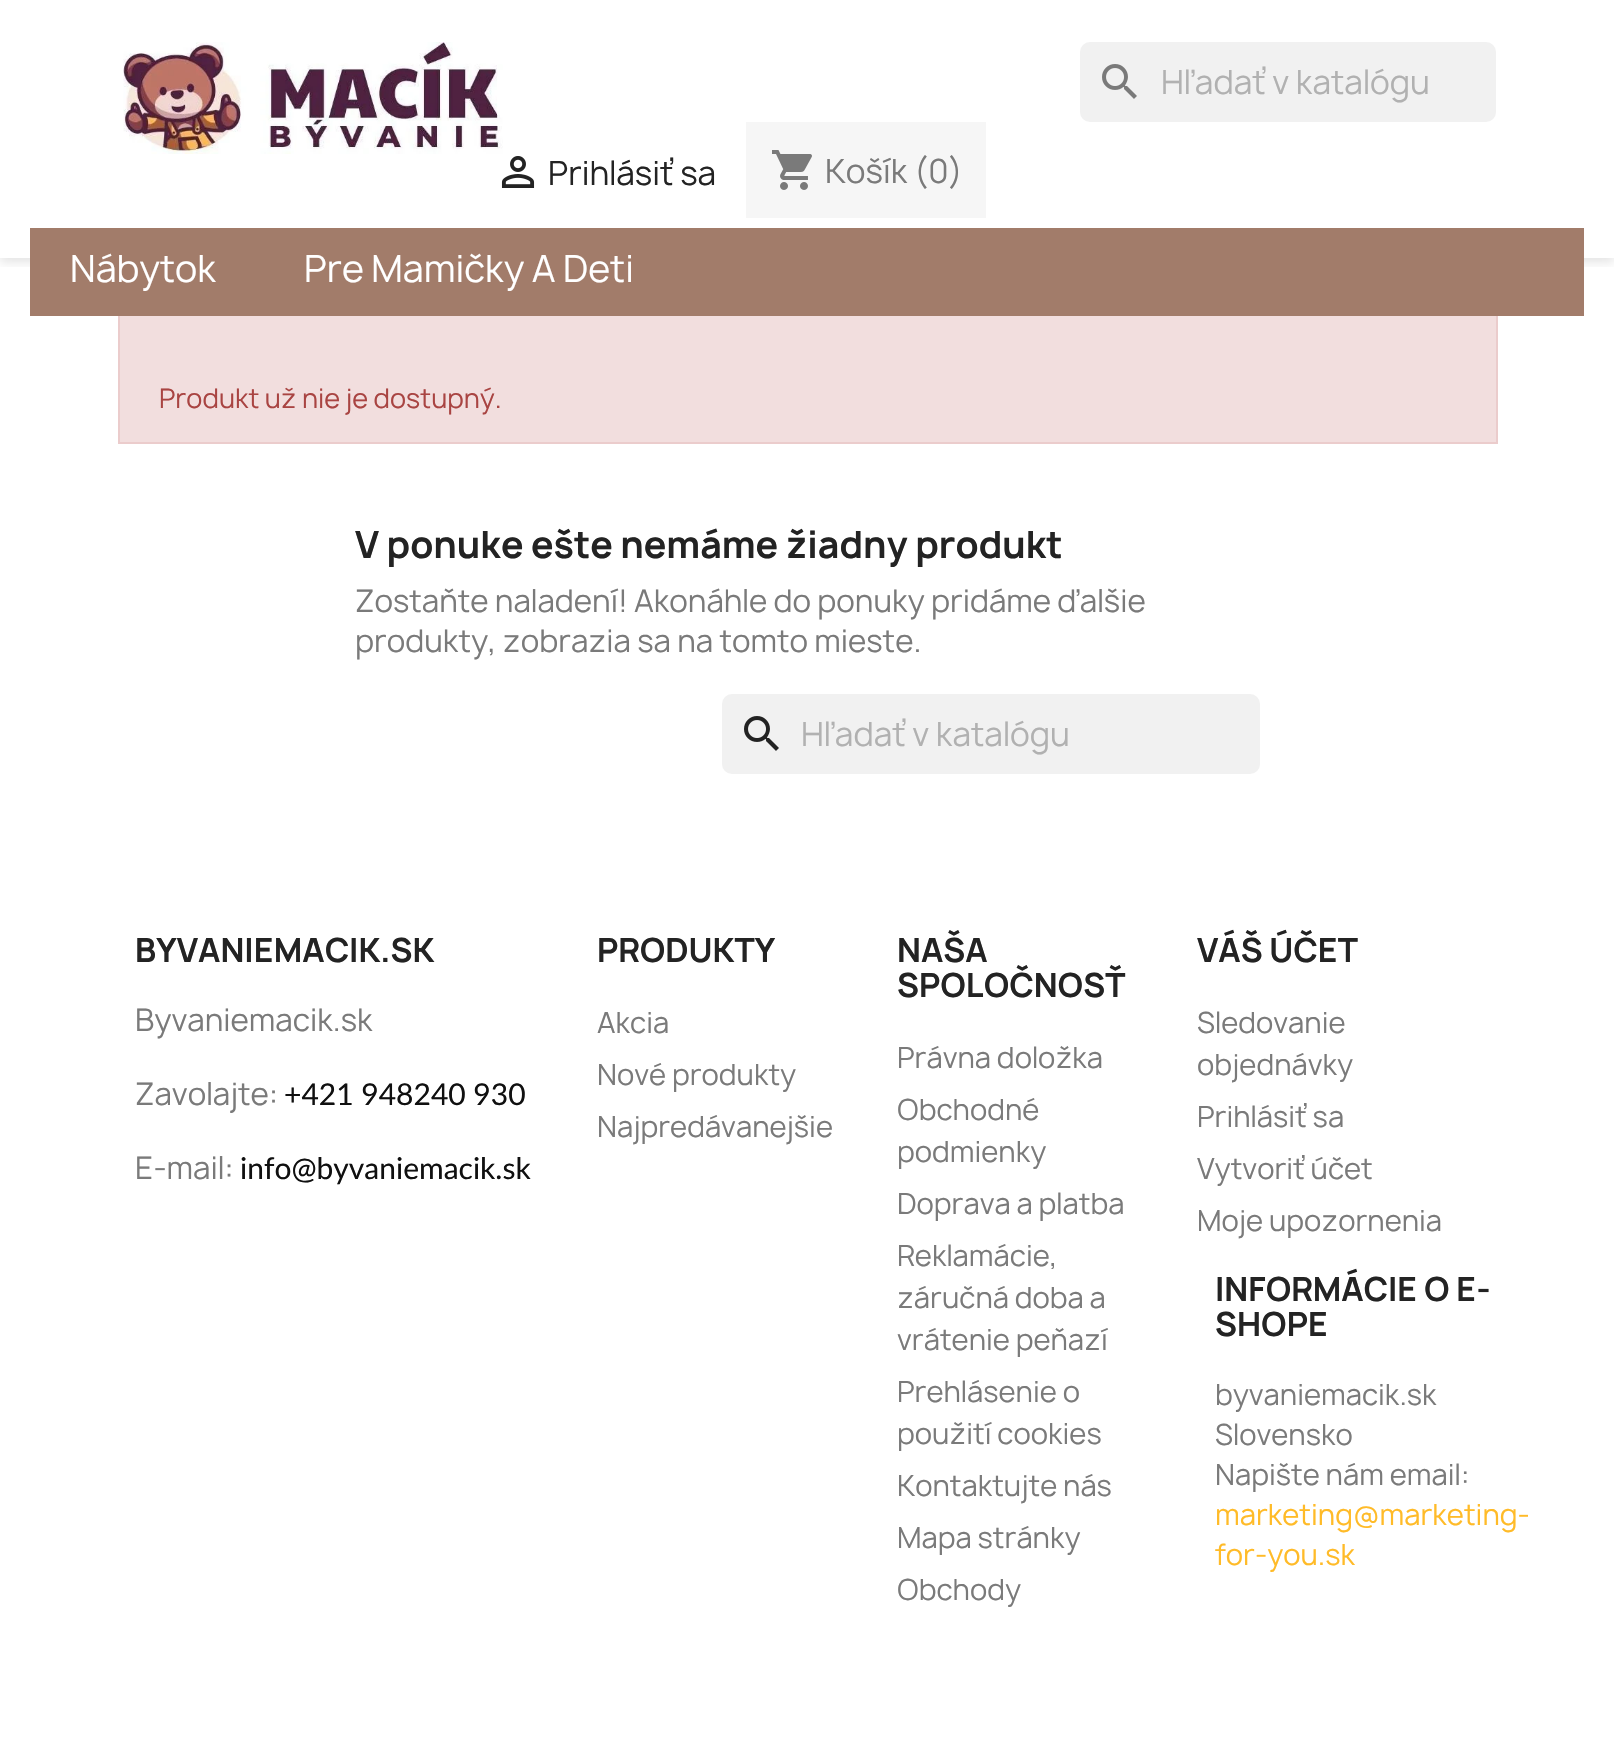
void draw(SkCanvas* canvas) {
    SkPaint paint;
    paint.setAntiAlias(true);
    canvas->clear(0xFFFFFFFF);
    canvas->save();
    canvas->clipRect(SkRect::MakeXYWH(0, 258, 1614, 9));
    paint.setColor(0x1C000000);
    paint.setMaskFilter(SkMaskFilter::MakeBlur(kNormal_SkBlurStyle, 5));
    canvas->drawRect(SkRect::MakeXYWH(0, 4, 1614, 258), paint);
    paint.setMaskFilter(nullptr);
    canvas->restore();
    canvas->drawImageRect(SkImages::DeferredFromEncodedData(SkData::MakeFromFileName("img1.png")), SkRect::MakeXYWH(123, 42, 380, 112), SkSamplingOptions());
    paint.setColor(0xFFF1F1F1);
    canvas->drawRoundRect(SkRect::MakeXYWH(1080, 42, 416, 80), 10, 10, paint);
    canvas->drawImageRect(SkImages::DeferredFromEncodedData(SkData::MakeFromFileName("img2.png")), SkRect::MakeXYWH(1102, 64, 35, 35), SkSamplingOptions());
    SkFont font1(fontMgr->matchFamilyStyle("Manrope", SkFontStyle::Normal()), 32);
    font1.setSubpixel(true);
    paint.setColor(0xFFB1B1B1);
    canvas->drawString("Hľadať v katalógu", 1161, 94, font1, paint);
    canvas->drawImageRect(SkImages::DeferredFromEncodedData(SkData::MakeFromFileName("img3.png")), SkRect::MakeXYWH(501, 156, 34, 32), SkSamplingOptions());
    paint.setColor(0xFF232323);
    canvas->drawString("Prihlásiť sa", 548, 185, font1, paint);
    paint.setColor(0xFFF6F6F6);
    canvas->drawRect(SkRect::MakeXYWH(746, 122, 240, 96), paint);
    canvas->drawImageRect(SkImages::DeferredFromEncodedData(SkData::MakeFromFileName("img4.png")), SkRect::MakeXYWH(772, 150, 40, 40), SkSamplingOptions());
    paint.setColor(0xFF7A7A7A);
    canvas->drawString("Košík (0)", 825, 183, font1, paint);
    paint.setColor(0xFFF2DEDE);
    canvas->drawRect(SkRect::MakeXYWH(120, 316, 1376, 126), paint);
    paint.setStyle(SkPaint::kStroke_Style);
    paint.setStrokeWidth(2);
    paint.setColor(0xFFEBCCCC);
    canvas->drawRect(SkRect::MakeXYWH(119, 309, 1378, 134), paint);
    paint.setStyle(SkPaint::kFill_Style);
    paint.setColor(0xFFA27C6A);
    canvas->drawRect(SkRect::MakeXYWH(30, 228, 1554, 88), paint);
    SkFont font2(fontMgr->matchFamilyStyle("Manrope", SkFontStyle::Normal()), 36);
    font2.setSubpixel(true);
    paint.setColor(0xFFFFFFFF);
    canvas->drawString("Nábytok", 70, 282, font2, paint);
    canvas->drawString("Pre Mamičky A Deti", 304, 282, font2, paint);
    SkFont font3(fontMgr->matchFamilyStyle("Manrope", SkFontStyle::Normal()), 26);
    font3.setSubpixel(true);
    paint.setColor(0xFFA94442);
    canvas->drawString("Produkt už nie je dostupný.", 159, 408, font3, paint);
    SkFont font4(fontMgr->matchFamilyStyle("Manrope", SkFontStyle::Bold()), 36);
    font4.setSubpixel(true);
    paint.setColor(0xFF232323);
    canvas->drawString("V ponuke ešte nemáme žiadny produkt", 355, 558, font4, paint);
    SkFont font5(fontMgr->matchFamilyStyle("Manrope", SkFontStyle::Normal()), 30);
    font5.setSubpixel(true);
    paint.setColor(0xFF7A7A7A);
    canvas->drawString("Zostaňte naladení! Akonáhle do ponuky pridáme ďalšie", 355, 612, font5, paint);
    canvas->drawString("produkty, zobrazia sa na tomto mieste.", 355, 652, font5, paint);
    paint.setColor(0xFFF1F1F1);
    canvas->drawRoundRect(SkRect::MakeXYWH(722, 694, 538, 80), 10, 10, paint);
    canvas->drawImageRect(SkImages::DeferredFromEncodedData(SkData::MakeFromFileName("img5.png")), SkRect::MakeXYWH(744, 716, 35, 35), SkSamplingOptions());
    paint.setColor(0xFFB1B1B1);
    canvas->drawString("Hľadať v katalógu", 801, 746, font1, paint);
    SkFont font6(fontMgr->matchFamilyStyle("Manrope", SkFontStyle::Bold()), 32);
    font6.setSubpixel(true);
    paint.setColor(0xFF232323);
    canvas->drawString("BYVANIEMACIK.SK", 135, 962, font6, paint);
    paint.setColor(0xFF7A7A7A);
    canvas->drawString("Byvaniemacik.sk", 135, 1031, font5, paint);
    canvas->drawString("Zavolajte:", 135, 1105, font5, paint);
    SkFont font7(fontMgr->matchFamilyStyle("Lato", SkFontStyle::Normal()), 30);
    font7.setSubpixel(true);
    paint.setColor(0xFF101010);
    canvas->drawString("+421 948240 930", 284, 1105, font7, paint);
    paint.setColor(0xFF7A7A7A);
    canvas->drawString("E-mail:", 135, 1179, font5, paint);
    paint.setColor(0xFF101010);
    canvas->drawString("info@byvaniemacik.sk", 240, 1179, font7, paint);
    paint.setColor(0xFF232323);
    canvas->drawString("PRODUKTY", 597, 962, font6, paint);
    SkFont font8(fontMgr->matchFamilyStyle("Manrope", SkFontStyle::Normal()), 28);
    font8.setSubpixel(true);
    paint.setColor(0xFF7A7A7A);
    canvas->drawString("Akcia", 597, 1033, font8, paint);
    canvas->drawString("Nové produkty", 597, 1085, font8, paint);
    canvas->drawString("Najpredávanejšie", 597, 1137, font8, paint);
    paint.setColor(0xFF232323);
    canvas->drawString("NAŠA", 897, 962, font6, paint);
    canvas->drawString("SPOLOČNOSŤ", 897, 997, font6, paint);
    paint.setColor(0xFF7A7A7A);
    canvas->drawString("Právna doložka", 897, 1068, font8, paint);
    canvas->drawString("Obchodné", 897, 1120, font8, paint);
    canvas->drawString("podmienky", 897, 1162, font8, paint);
    canvas->drawString("Doprava a platba", 897, 1214, font8, paint);
    canvas->drawString("Reklamácie,", 897, 1266, font8, paint);
    canvas->drawString("záručná doba a", 897, 1308, font8, paint);
    canvas->drawString("vrátenie peňazí", 897, 1350, font8, paint);
    canvas->drawString("Prehlásenie o", 897, 1402, font8, paint);
    canvas->drawString("použití cookies", 897, 1444, font8, paint);
    canvas->drawString("Kontaktujte nás", 897, 1496, font8, paint);
    canvas->drawString("Mapa stránky", 897, 1548, font8, paint);
    canvas->drawString("Obchody", 897, 1600, font8, paint);
    paint.setColor(0xFF232323);
    canvas->drawString("VÁŠ ÚČET", 1197, 962, font6, paint);
    paint.setColor(0xFF7A7A7A);
    canvas->drawString("Sledovanie", 1197, 1033, font8, paint);
    canvas->drawString("objednávky", 1197, 1075, font8, paint);
    canvas->drawString("Prihlásiť sa", 1197, 1127, font8, paint);
    canvas->drawString("Vytvoriť účet", 1197, 1179, font8, paint);
    canvas->drawString("Moje upozornenia", 1197, 1231, font8, paint);
    paint.setColor(0xFF232323);
    canvas->drawString("INFORMÁCIE O E-", 1215, 1301, font6, paint);
    canvas->drawString("SHOPE", 1215, 1336, font6, paint);
    paint.setColor(0xFF7A7A7A);
    canvas->drawString("byvaniemacik.sk", 1215, 1405, font8, paint);
    canvas->drawString("Slovensko", 1215, 1445, font8, paint);
    canvas->drawString("Napište nám email:", 1215, 1485, font8, paint);
    paint.setColor(0xFFFFBB28);
    canvas->drawString("marketing@marketing-", 1215, 1525, font8, paint);
    canvas->drawString("for-you.sk", 1215, 1565, font8, paint);
}
